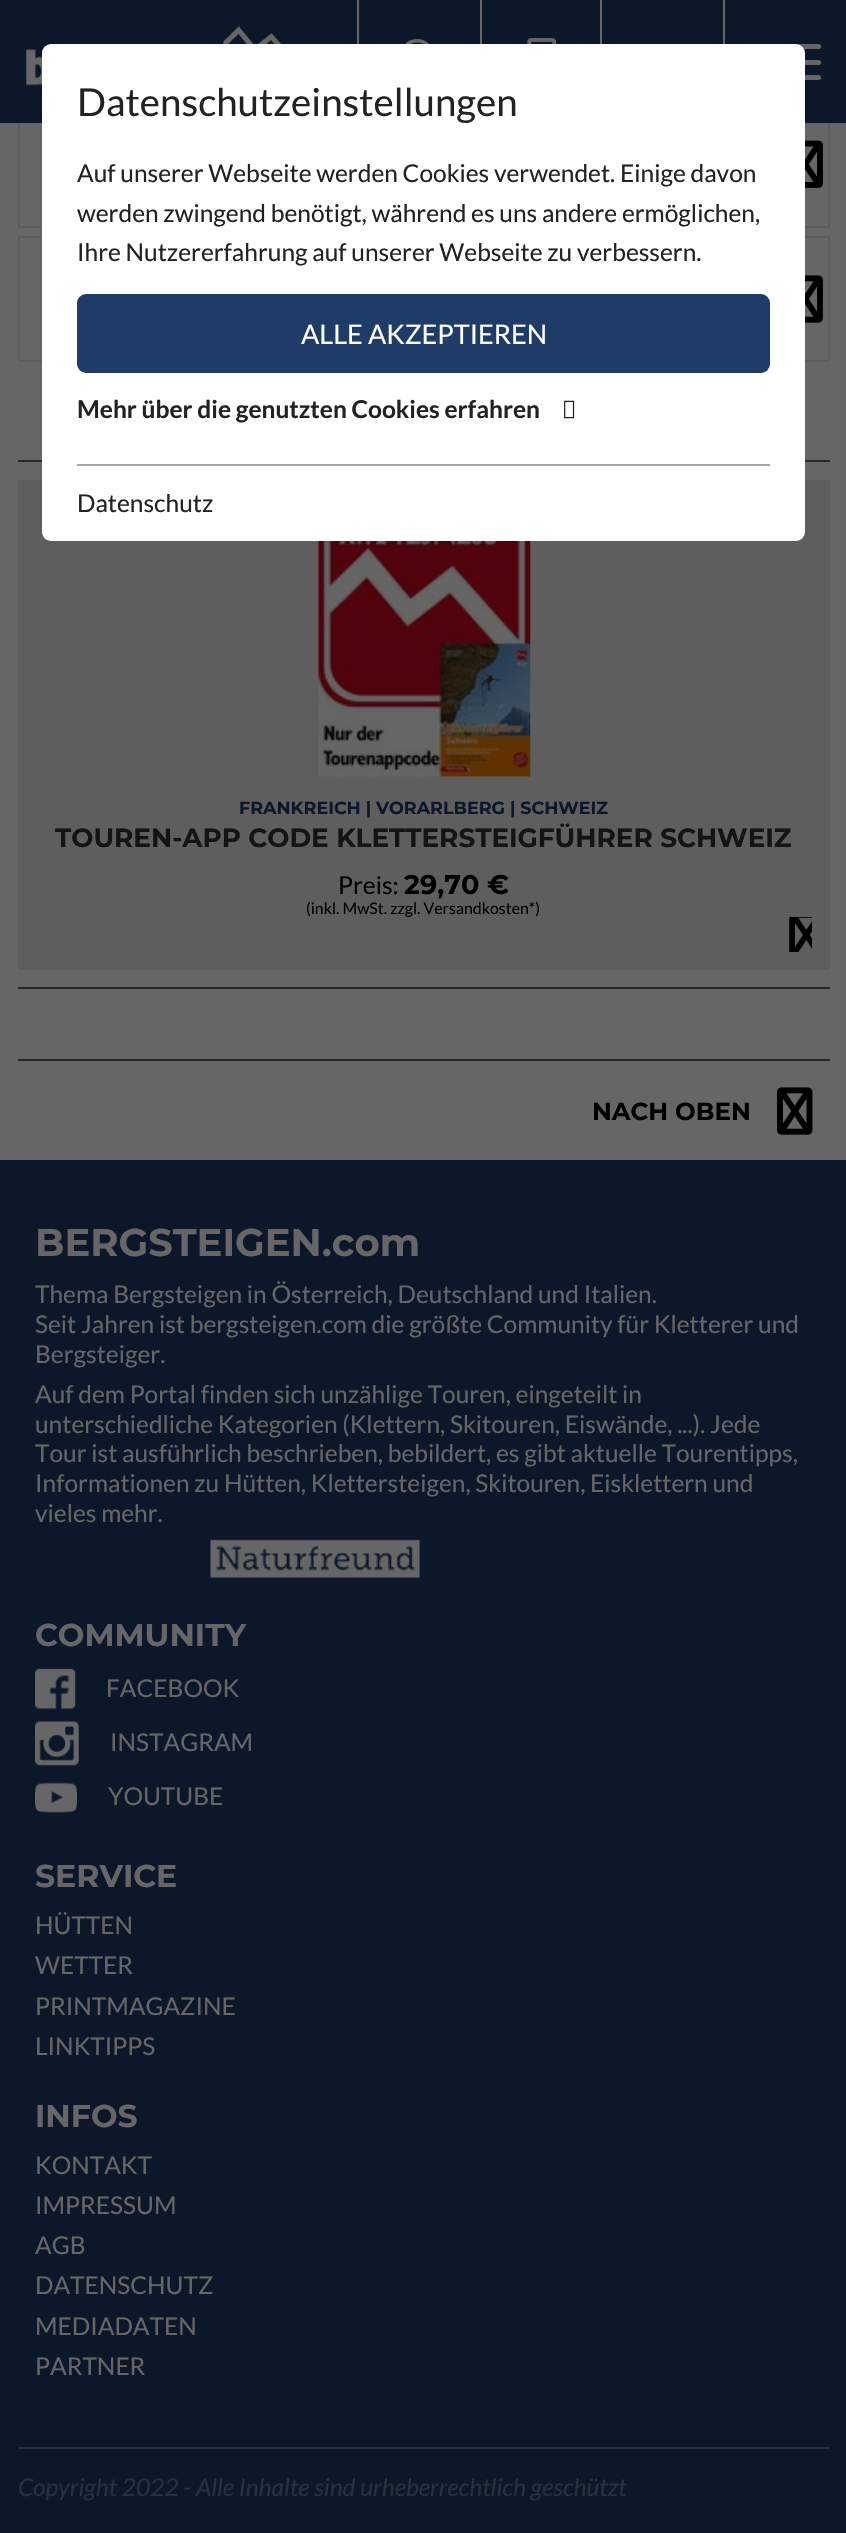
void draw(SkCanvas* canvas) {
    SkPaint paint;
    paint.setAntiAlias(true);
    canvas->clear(0xFF666666);
    paint.setStyle(SkPaint::kStroke_Style);
    paint.setStrokeWidth(2);
    paint.setColor(0xFF5F5E5E);
    canvas->drawRect(SkRect::MakeXYWH(19, 101, 810, 126), paint);
    paint.setStyle(SkPaint::kFill_Style);
    paint.setColor(0xFF0C182A);
    canvas->drawRect(SkRect::MakeXYWH(0, 0, 846, 123), paint);
    canvas->drawImageRect(SkImages::DeferredFromEncodedData(SkData::MakeFromFileName("img2.png")), SkRect::MakeXYWH(26, 26, 256, 60), SkSamplingOptions());
    paint.setColor(0xFF666666);
    canvas->drawRoundRect(SkRect::MakeXYWH(751, 44, 70, 5), 2.5f, 2.5f, paint);
    canvas->drawRoundRect(SkRect::MakeXYWH(751, 60, 70, 5), 2.5f, 2.5f, paint);
    canvas->drawRoundRect(SkRect::MakeXYWH(751, 75, 70, 5), 2.5f, 2.5f, paint);
    paint.setStyle(SkPaint::kStroke_Style);
    paint.setColor(0xFF5F5E5E);
    canvas->drawRect(SkRect::MakeXYWH(19, 237, 810, 124), paint);
    paint.setStyle(SkPaint::kFill_Style);
    paint.setColor(0xFF292929);
    canvas->drawRect(SkRect::MakeXYWH(18, 460, 812, 2), paint);
    paint.setColor(0xFF5F5E5E);
    canvas->drawRect(SkRect::MakeXYWH(18, 480, 812, 490), paint);
    paint.setColor(0xFFFFFFFF);
    canvas->drawRoundRect(SkRect::MakeXYWH(42, 44, 763, 497), 9, 9, paint);
    SkFont font1(fontMgr->matchFamilyStyle("Lato", SkFontStyle::Normal()), 38.5f);
    font1.setSubpixel(true);
    paint.setColor(0xFF222222);
    canvas->drawString("Datenschutzeinstellungen", 77, 116, font1, paint);
    SkFont font2(fontMgr->matchFamilyStyle("Lato", SkFontStyle::Normal()), 24.5f);
    font2.setSubpixel(true);
    canvas->drawString("Auf unserer Webseite werden Cookies verwendet. Einige davon", 77, 182, font2, paint);
    canvas->drawString("werden zwingend benötigt, während es uns andere ermöglichen,", 77, 222, font2, paint);
    canvas->drawString("Ihre Nutzererfahrung auf unserer Webseite zu verbessern.", 77, 261, font2, paint);
    paint.setColor(0xFF1F3C68);
    canvas->drawRoundRect(SkRect::MakeXYWH(77, 294, 693, 79), 9, 9, paint);
    SkFont font3(fontMgr->matchFamilyStyle("Lato", SkFontStyle::Normal()), 27);
    font3.setSubpixel(true);
    paint.setColor(0xFFFFFFFF);
    canvas->drawString("ALLE AKZEPTIEREN", 301, 344, font3, paint);
    SkFont font4(fontMgr->matchFamilyStyle("Lato", SkFontStyle::Bold()), 24.5f);
    font4.setSubpixel(true);
    paint.setColor(0xFF222222);
    canvas->drawString("Mehr über die genutzten Cookies erfahren", 77, 418, font4, paint);
    canvas->drawImageRect(SkImages::DeferredFromEncodedData(SkData::MakeFromFileName("img1.png")), SkRect::MakeXYWH(564, 400, 11, 19), SkSamplingOptions());
    paint.setColor(0xFFA5A5A5);
    canvas->drawRect(SkRect::MakeXYWH(77, 464, 693, 2), paint);
    paint.setColor(0xFF222222);
    canvas->drawString("Datenschutz", 77, 512, font2, paint);
    paint.setColor(0xFF666666);
    canvas->drawRect(SkRect::MakeXYWH(357, 0, 2, 44), paint);
    canvas->drawImageRect(SkImages::DeferredFromEncodedData(SkData::MakeFromFileName("img3.png")), SkRect::MakeXYWH(405, 39, 24, 5), SkSamplingOptions());
    canvas->drawRect(SkRect::MakeXYWH(600, 0, 2, 44), paint);
    canvas->drawRect(SkRect::MakeXYWH(480, 0, 2, 44), paint);
    canvas->drawImageRect(SkImages::DeferredFromEncodedData(SkData::MakeFromFileName("img4.png")), SkRect::MakeXYWH(527, 38, 30, 6), SkSamplingOptions());
    canvas->drawRect(SkRect::MakeXYWH(723, 0, 2, 44), paint);
    canvas->drawImageRect(SkImages::DeferredFromEncodedData(SkData::MakeFromFileName("img5.png")), SkRect::MakeXYWH(805, 140, 18, 48), SkSamplingOptions());
    canvas->drawImageRect(SkImages::DeferredFromEncodedData(SkData::MakeFromFileName("img6.png")), SkRect::MakeXYWH(805, 275, 18, 48), SkSamplingOptions());
    canvas->drawImageRect(SkImages::DeferredFromEncodedData(SkData::MakeFromFileName("img7.png")), SkRect::MakeXYWH(318, 541, 213, 236), SkSamplingOptions());
    SkFont font5(fontMgr->matchFamilyStyle("Montserrat", SkFontStyle(100, SkFontStyle::kNormal_Width, SkFontStyle::kUpright_Slant)), 17.5f);
    font5.setSubpixel(true);
    paint.setColor(0xFF0C182A);
    canvas->drawString("FRANKREICH | VORARLBERG | SCHWEIZ", 239, 814, font5, paint);
    SkFont font6(fontMgr->matchFamilyStyle("Montserrat", SkFontStyle(100, SkFontStyle::kNormal_Width, SkFontStyle::kUpright_Slant)), 26.25f);
    font6.setSubpixel(true);
    paint.setColor(0xFF141414);
    canvas->drawString("TOUREN-APP CODE KLETTERSTEIGFÜHRER SCHWEIZ", 55, 847, font6, paint);
    paint.setColor(0xFF000000);
    canvas->drawString("Preis:", 338, 894, font2, paint);
    SkFont font7(fontMgr->matchFamilyStyle("Montserrat", SkFontStyle(100, SkFontStyle::kNormal_Width, SkFontStyle::kUpright_Slant)), 27);
    font7.setSubpixel(true);
    canvas->drawString("29,70 €", 404, 894, font7, paint);
    SkFont font8(fontMgr->matchFamilyStyle("Lato", SkFontStyle::Normal()), 15.9f);
    font8.setSubpixel(true);
    canvas->drawString("(inkl. MwSt. zzgl. Versandkosten*)", 306, 914, font8, paint);
    canvas->drawImageRect(SkImages::DeferredFromEncodedData(SkData::MakeFromFileName("img8.png")), SkRect::MakeXYWH(789, 917, 23, 35), SkSamplingOptions());
    paint.setColor(0xFF292929);
    canvas->drawRect(SkRect::MakeXYWH(18, 987, 812, 2), paint);
    canvas->drawRect(SkRect::MakeXYWH(18, 1059, 812, 2), paint);
    SkFont font9(fontMgr->matchFamilyStyle("Montserrat", SkFontStyle(100, SkFontStyle::kNormal_Width, SkFontStyle::kUpright_Slant)), 24.5f);
    font9.setSubpixel(true);
    paint.setColor(0xFF000000);
    canvas->drawString("NACH OBEN", 592, 1120, font9, paint);
    canvas->drawImageRect(SkImages::DeferredFromEncodedData(SkData::MakeFromFileName("img9.png")), SkRect::MakeXYWH(777, 1087, 36, 48), SkSamplingOptions());
    paint.setColor(0xFF0C182A);
    canvas->drawRect(SkRect::MakeXYWH(0, 1160, 846, 1373), paint);
    SkFont font10(fontMgr->matchFamilyStyle("Montserrat", SkFontStyle(100, SkFontStyle::kNormal_Width, SkFontStyle::kUpright_Slant)), 38.5f);
    font10.setSubpixel(true);
    paint.setColor(0xFF666666);
    canvas->drawString("BERGSTEIGEN.com", 35, 1256, font10, paint);
    canvas->drawString("Thema Bergsteigen in Österreich, Deutschland und Italien.", 35, 1303, font2, paint);
    canvas->drawString("Seit Jahren ist bergsteigen.com die größte Community für Kletterer und", 35, 1333, font2, paint);
    canvas->drawString("Bergsteiger.", 35, 1363, font2, paint);
    canvas->drawString("Auf dem Portal finden sich unzählige Touren, eingeteilt in", 35, 1403, font2, paint);
    canvas->drawString("unterschiedliche Kategorien (Klettern, Skitouren, Eiswände, ...). Jede", 35, 1433, font2, paint);
    canvas->drawString("Tour ist ausführlich beschrieben, bebildert, es gibt aktuelle Tourentipps,", 35, 1462, font2, paint);
    canvas->drawString("Informationen zu Hütten, Klettersteigen, Skitouren, Eisklettern und", 35, 1492, font2, paint);
    canvas->drawString("vieles mehr.", 35, 1522, font2, paint);
    canvas->drawImageRect(SkImages::DeferredFromEncodedData(SkData::MakeFromFileName("img10.png")), SkRect::MakeXYWH(210, 1539, 210, 39), SkSamplingOptions());
    SkFont font11(fontMgr->matchFamilyStyle("Montserrat", SkFontStyle(100, SkFontStyle::kNormal_Width, SkFontStyle::kUpright_Slant)), 31.5f);
    font11.setSubpixel(true);
    canvas->drawString("COMMUNITY", 35, 1646, font11, paint);
    canvas->drawImageRect(SkImages::DeferredFromEncodedData(SkData::MakeFromFileName("img11.png")), SkRect::MakeXYWH(35, 1668, 41, 42), SkSamplingOptions());
    canvas->drawString("FACEBOOK", 106, 1697, font2, paint);
    canvas->drawImageRect(SkImages::DeferredFromEncodedData(SkData::MakeFromFileName("img12.png")), SkRect::MakeXYWH(35, 1721, 44, 45), SkSamplingOptions());
    canvas->drawString("INSTAGRAM", 110, 1751, font2, paint);
    canvas->drawImageRect(SkImages::DeferredFromEncodedData(SkData::MakeFromFileName("img13.png")), SkRect::MakeXYWH(35, 1782, 42, 31), SkSamplingOptions());
    canvas->drawString("YOUTUBE", 108, 1805, font2, paint);
    canvas->drawString("SERVICE", 35, 1887, font11, paint);
    canvas->drawString("HÜTTEN", 35, 1934, font2, paint);
    canvas->drawString("WETTER", 35, 1974, font2, paint);
    canvas->drawString("PRINTMAGAZINE", 35, 2015, font2, paint);
    canvas->drawString("LINKTIPPS", 35, 2055, font2, paint);
    canvas->drawString("INFOS", 35, 2127, font11, paint);
    canvas->drawString("KONTAKT", 35, 2174, font2, paint);
    canvas->drawString("IMPRESSUM", 35, 2214, font2, paint);
    canvas->drawString("AGB", 35, 2254, font2, paint);
    canvas->drawString("DATENSCHUTZ", 35, 2294, font2, paint);
    canvas->drawString("MEDIADATEN", 35, 2335, font2, paint);
    canvas->drawString("PARTNER", 35, 2375, font2, paint);
    paint.setColor(0xFF27303C);
    canvas->drawRect(SkRect::MakeXYWH(18, 2447, 812, 2), paint);
    SkFont font12(fontMgr->matchFamilyStyle("Lato", SkFontStyle::Italic()), 24.5f);
    font12.setSubpixel(true);
    canvas->drawString("Copyright 2022 - Alle Inhalte sind urheberrechtlich geschützt", 18, 2496, font12, paint);
}
